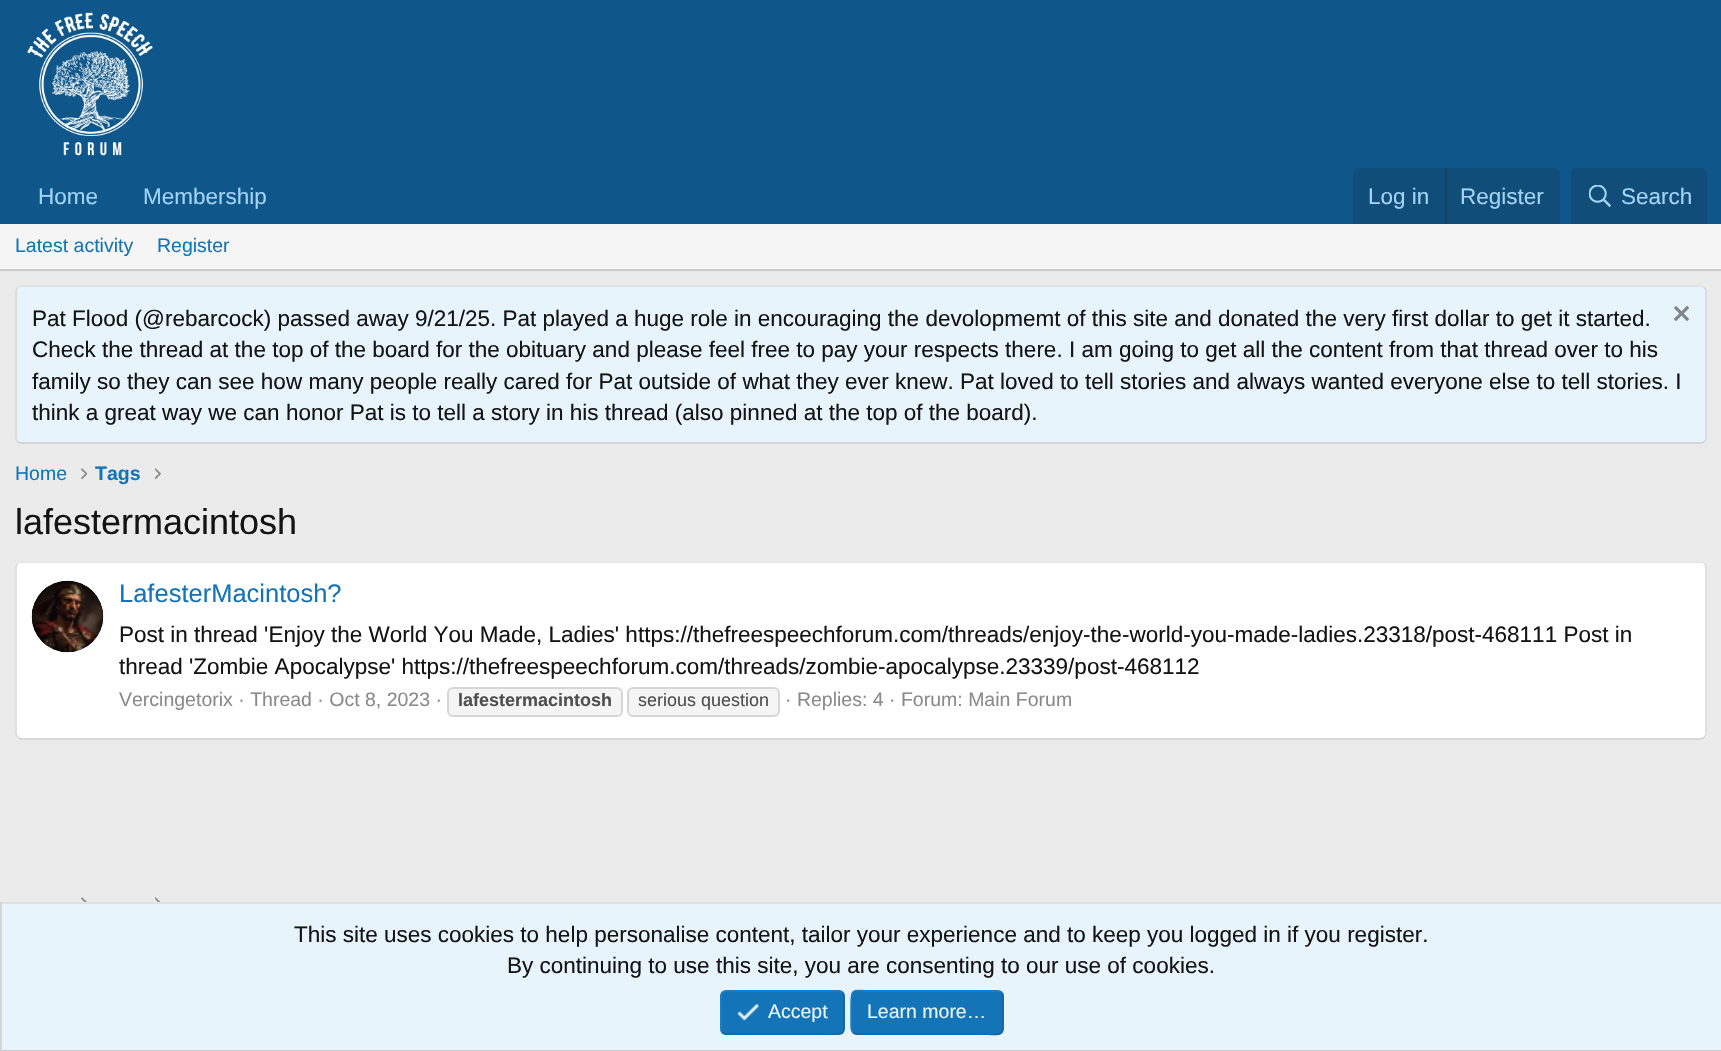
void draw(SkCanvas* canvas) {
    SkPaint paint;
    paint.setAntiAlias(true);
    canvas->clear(0xFFEBEBEB);
    paint.setColor(0xFF0F578A);
    canvas->drawRect(SkRect::MakeXYWH(0, 0, 1721, 224), paint);
    canvas->drawImageRect(SkImages::DeferredFromEncodedData(SkData::MakeFromFileName("img1.png")), SkRect::MakeXYWH(27, 12, 126, 144), SkSamplingOptions());
    SkFont font1(fontMgr->matchFamilyStyle("Liberation Sans", SkFontStyle::Normal()), 22.5f);
    font1.setSubpixel(true);
    paint.setColor(0xFFA3D4F5);
    canvas->drawString("Home", 38, 204, font1, paint);
    canvas->drawString("Membership", 143, 204, font1, paint);
    paint.setColor(0xFF104D78);
    canvas->drawPath(SkPathBuilder().moveTo(1359, 168).lineTo(1554, 168).cubicTo(1557.5f, 168, 1560, 170.5f, 1560, 174).lineTo(1560, 224).lineTo(1353, 224).lineTo(1353, 174).cubicTo(1353, 170.5f, 1355.5f, 168, 1359, 168).close().detach(), paint);
    paint.setColor(0xFFA3D4F5);
    canvas->drawString("Log in", 1368, 204, font1, paint);
    paint.setColor(0xFF114469);
    canvas->drawRect(SkRect::MakeXYWH(1445, 168, 2, 56), paint);
    paint.setColor(0xFFA3D4F5);
    canvas->drawString("Register", 1460, 204, font1, paint);
    paint.setColor(0xFF104D78);
    canvas->drawPath(SkPathBuilder().moveTo(1577, 168).lineTo(1701, 168).cubicTo(1704.5f, 168, 1707, 170.5f, 1707, 174).lineTo(1707, 224).lineTo(1571, 224).lineTo(1571, 174).cubicTo(1571, 170.5f, 1573.5f, 168, 1577, 168).close().detach(), paint);
    canvas->drawImageRect(SkImages::DeferredFromEncodedData(SkData::MakeFromFileName("img2.png")), SkRect::MakeXYWH(1589, 185, 22, 22), SkSamplingOptions());
    paint.setColor(0xFFA3D4F5);
    canvas->drawString("Search", 1621, 204, font1, paint);
    paint.setColor(0xFFF5F5F5);
    canvas->drawRect(SkRect::MakeXYWH(0, 224, 1721, 45), paint);
    paint.setColor(0xFFCCCCCC);
    canvas->drawRect(SkRect::MakeXYWH(0, 269, 1721, 2), paint);
    SkFont font2(fontMgr->matchFamilyStyle("Liberation Sans", SkFontStyle::Normal()), 19.5f);
    font2.setSubpixel(true);
    paint.setColor(0xFF1474B8);
    canvas->drawString("Latest activity", 15, 252, font2, paint);
    canvas->drawString("Register", 157, 252, font2, paint);
    paint.setColor(0xFFE8F4FC);
    canvas->drawRoundRect(SkRect::MakeXYWH(15, 285, 1692, 159), 6, 6, paint);
    paint.setStyle(SkPaint::kStroke_Style);
    paint.setStrokeWidth(1.5f);
    paint.setColor(0xFFE0E0E0);
    canvas->drawPath(SkPathBuilder().moveTo(17.5f, 287.5f).cubicTo(18.5f, 286.5f, 19.5f, 286, 21, 286).lineTo(1701, 286).cubicTo(1702.5f, 286, 1703.5f, 286.5f, 1704.5f, 287.5f).detach(), paint);
    paint.setColor(0xFFD6D6D6);
    canvas->drawPath(SkPathBuilder().moveTo(1704.5f, 287.5f).cubicTo(1705.5f, 288.5f, 1706, 289.5f, 1706, 291).lineTo(1706, 438).cubicTo(1706, 439.5f, 1705.5f, 440.5f, 1704.5f, 441.5f).detach(), paint);
    paint.setColor(0xFFCCCCCC);
    canvas->drawPath(SkPathBuilder().moveTo(1704.5f, 441.5f).cubicTo(1703.5f, 442.5f, 1702.5f, 443, 1701, 443).lineTo(21, 443).cubicTo(19.5f, 443, 18.5f, 442.5f, 17.5f, 441.5f).detach(), paint);
    paint.setColor(0xFFD6D6D6);
    canvas->drawPath(SkPathBuilder().moveTo(17.5f, 441.5f).cubicTo(16.5f, 440.5f, 16, 439.5f, 16, 438).lineTo(16, 291).cubicTo(16, 289.5f, 16.5f, 288.5f, 17.5f, 287.5f).detach(), paint);
    paint.setStyle(SkPaint::kFill_Style);
    paint.setColor(0xFF141414);
    canvas->drawString("Pat Flood (@rebarcock) passed away 9/21/25. Pat played a huge role in encouraging the devolopmemt of this site and donated the very first dollar to get it started.", 32, 326, font1, paint);
    canvas->drawImageRect(SkImages::DeferredFromEncodedData(SkData::MakeFromFileName("img3.png")), SkRect::MakeXYWH(1674, 306, 15, 15), SkSamplingOptions());
    canvas->drawString("Check the thread at the top of the board for the obituary and please feel free to pay your respects there. I am going to get all the content from that thread over to his", 32, 357, font1, paint);
    canvas->drawString("family so they can see how many people really cared for Pat outside of what they ever knew. Pat loved to tell stories and always wanted everyone else to tell stories. I", 32, 389, font1, paint);
    canvas->drawString("think a great way we can honor Pat is to tell a story in his thread (also pinned at the top of the board).", 32, 420, font1, paint);
    paint.setColor(0xFF1474B8);
    canvas->drawString("Home", 15, 480, font2, paint);
    canvas->drawImageRect(SkImages::DeferredFromEncodedData(SkData::MakeFromFileName("img4.png")), SkRect::MakeXYWH(81, 468, 6, 12), SkSamplingOptions());
    SkFont font3(fontMgr->matchFamilyStyle("Liberation Sans", SkFontStyle::Bold()), 19.5f);
    font3.setSubpixel(true);
    canvas->drawString("Tags", 95, 480, font3, paint);
    canvas->drawImageRect(SkImages::DeferredFromEncodedData(SkData::MakeFromFileName("img5.png")), SkRect::MakeXYWH(155, 468, 6, 12), SkSamplingOptions());
    SkFont font4(fontMgr->matchFamilyStyle("Liberation Sans", SkFontStyle::Normal()), 36);
    font4.setSubpixel(true);
    paint.setColor(0xFF141414);
    canvas->drawString("lafestermacintosh", 15, 534, font4, paint);
    paint.setColor(0xFFFFFFFF);
    canvas->drawRoundRect(SkRect::MakeXYWH(15, 561, 1692, 179), 6, 6, paint);
    paint.setStyle(SkPaint::kStroke_Style);
    paint.setColor(0xFFE0E0E0);
    canvas->drawPath(SkPathBuilder().moveTo(17.5f, 563.5f).cubicTo(18.5f, 562.5f, 19.5f, 562, 21, 562).lineTo(1701, 562).cubicTo(1702.5f, 562, 1703.5f, 562.5f, 1704.5f, 563.5f).detach(), paint);
    paint.setColor(0xFFD6D6D6);
    canvas->drawPath(SkPathBuilder().moveTo(1704.5f, 563.5f).cubicTo(1705.5f, 564.5f, 1706, 565.5f, 1706, 567).lineTo(1706, 733.5f).cubicTo(1706, 735, 1705.5f, 736, 1704.5f, 737).detach(), paint);
    paint.setColor(0xFFCCCCCC);
    canvas->drawPath(SkPathBuilder().moveTo(1704.5f, 737).cubicTo(1703.5f, 738, 1702.5f, 739, 1701, 739).lineTo(21, 739).cubicTo(19.5f, 739, 18.5f, 738, 17.5f, 737).detach(), paint);
    paint.setColor(0xFFD6D6D6);
    canvas->drawPath(SkPathBuilder().moveTo(17.5f, 737).cubicTo(16.5f, 736, 16, 735, 16, 733.5f).lineTo(16, 567).cubicTo(16, 565.5f, 16.5f, 564.5f, 17.5f, 563.5f).detach(), paint);
    canvas->drawImageRect(SkImages::DeferredFromEncodedData(SkData::MakeFromFileName("img6.png")), SkRect::MakeXYWH(31, 580, 73, 73), SkSamplingOptions());
    SkFont font5(fontMgr->matchFamilyStyle("Liberation Sans", SkFontStyle::Normal()), 25.5f);
    font5.setSubpixel(true);
    paint.setStyle(SkPaint::kFill_Style);
    paint.setColor(0xFF1474B8);
    canvas->drawString("LafesterMacintosh?", 119, 602, font5, paint);
    paint.setColor(0xFF141414);
    canvas->drawString("Post in thread 'Enjoy the World You Made, Ladies' https://thefreespeechforum.com/threads/enjoy-the-world-you-made-ladies.23318/post-468111 Post in", 119, 642, font1, paint);
    canvas->drawString("thread 'Zombie Apocalypse' https://thefreespeechforum.com/threads/zombie-apocalypse.23339/post-468112", 119, 674, font1, paint);
    paint.setColor(0xFF8A8A8A);
    canvas->drawString("Vercingetorix · Thread · Oct 8, 2023 ·", 119, 706, font2, paint);
    paint.setColor(0xFFF5F5F5);
    canvas->drawRoundRect(SkRect::MakeXYWH(448, 688, 174, 28), 5, 5, paint);
    paint.setStyle(SkPaint::kStroke_Style);
    paint.setStrokeWidth(2);
    paint.setColor(0xFFD6D6D6);
    canvas->drawRoundRect(SkRect::MakeXYWH(448, 688, 174, 28), 5, 5, paint);
    SkFont font6(fontMgr->matchFamilyStyle("Liberation Sans", SkFontStyle::Bold()), 18);
    font6.setSubpixel(true);
    paint.setStyle(SkPaint::kFill_Style);
    paint.setColor(0xFF4F4F4F);
    canvas->drawString("lafestermacintosh", 458, 706, font6, paint);
    paint.setColor(0xFFF5F5F5);
    canvas->drawRoundRect(SkRect::MakeXYWH(628, 688, 151, 28), 5, 5, paint);
    paint.setStyle(SkPaint::kStroke_Style);
    paint.setColor(0xFFD6D6D6);
    canvas->drawRoundRect(SkRect::MakeXYWH(628, 688, 151, 28), 5, 5, paint);
    SkFont font7(fontMgr->matchFamilyStyle("Liberation Sans", SkFontStyle::Normal()), 18);
    font7.setSubpixel(true);
    paint.setStyle(SkPaint::kFill_Style);
    paint.setColor(0xFF4F4F4F);
    canvas->drawString("serious question", 638, 706, font7, paint);
    paint.setColor(0xFF8A8A8A);
    canvas->drawString("· Replies: 4 · Forum: Main Forum", 785, 706, font2, paint);
    canvas->drawImageRect(SkImages::DeferredFromEncodedData(SkData::MakeFromFileName("img7.png")), SkRect::MakeXYWH(81, 897, 6, 5), SkSamplingOptions());
    canvas->drawImageRect(SkImages::DeferredFromEncodedData(SkData::MakeFromFileName("img8.png")), SkRect::MakeXYWH(155, 897, 6, 5), SkSamplingOptions());
    paint.setColor(0xFFE8F4FC);
    canvas->drawRect(SkRect::MakeXYWH(2, 904, 1719, 146), paint);
    paint.setColor(0xFFE0E0E0);
    canvas->drawRect(SkRect::MakeXYWH(0, 902, 1721, 2), paint);
    paint.setColor(0xFFCCCCCC);
    canvas->drawRect(SkRect::MakeXYWH(0, 1050, 1721, 1), paint);
    paint.setColor(0xFFD6D6D6);
    canvas->drawRect(SkRect::MakeXYWH(0, 902, 2, 149), paint);
    paint.setColor(0xFF141414);
    canvas->drawString("This site uses cookies to help personalise content, tailor your experience and to keep you logged in if you register.", 294, 942, font1, paint);
    canvas->drawString("By continuing to use this site, you are consenting to our use of cookies.", 507, 973, font1, paint);
    paint.setColor(0xFF1474B8);
    canvas->drawRoundRect(SkRect::MakeXYWH(720, 990, 125, 45), 6, 6, paint);
    paint.setStyle(SkPaint::kStroke_Style);
    paint.setStrokeWidth(1.5f);
    paint.setColor(0xFF1265A1);
    canvas->drawPath(SkPathBuilder().moveTo(842, 992.5f).cubicTo(844.5f, 994.5f, 844, 998.5f, 844, 1001.5f).lineTo(844, 1012.5f).cubicTo(844, 1038, 847, 1034, 820, 1034).lineTo(726, 1034).cubicTo(724.5f, 1034, 723.5f, 1033.5f, 722.5f, 1032.5f).detach(), paint);
    paint.setColor(0xFF1782CF);
    canvas->drawPath(SkPathBuilder().moveTo(722.5f, 1032.5f).cubicTo(720, 1030.5f, 721, 1026.5f, 721, 1023.5f).lineTo(721, 1012.5f).cubicTo(721, 987, 717.5f, 991, 745, 991).lineTo(838.5f, 991).cubicTo(840, 991, 841, 991.5f, 842, 992.5f).detach(), paint);
    canvas->drawImageRect(SkImages::DeferredFromEncodedData(SkData::MakeFromFileName("img9.png")), SkRect::MakeXYWH(737, 1003, 22, 18), SkSamplingOptions());
    paint.setStyle(SkPaint::kFill_Style);
    paint.setColor(0xFFE8F4FC);
    canvas->drawString("Accept", 768, 1018, font2, paint);
    paint.setColor(0xFF1474B8);
    canvas->drawRoundRect(SkRect::MakeXYWH(851, 990, 153, 45), 6, 6, paint);
    paint.setStyle(SkPaint::kStroke_Style);
    paint.setColor(0xFF1265A1);
    canvas->drawPath(SkPathBuilder().moveTo(1001, 992.5f).cubicTo(1003.5f, 994.5f, 1003, 998.5f, 1003, 1001.5f).lineTo(1003, 1012.5f).cubicTo(1003, 1040, 1005.5f, 1034, 974, 1034).lineTo(856.5f, 1034).cubicTo(855, 1034, 854, 1033.5f, 853, 1032.5f).detach(), paint);
    paint.setColor(0xFF1782CF);
    canvas->drawPath(SkPathBuilder().moveTo(853, 1032.5f).cubicTo(850.5f, 1030.5f, 851, 1026.5f, 851, 1023.5f).lineTo(851, 1012.5f).cubicTo(851, 985, 848.5f, 991, 880, 991).lineTo(997.5f, 991).cubicTo(999, 991, 1000, 991.5f, 1001, 992.5f).detach(), paint);
    paint.setStyle(SkPaint::kFill_Style);
    paint.setColor(0xFFE8F4FC);
    canvas->drawString("Learn more…", 867, 1018, font2, paint);
}
